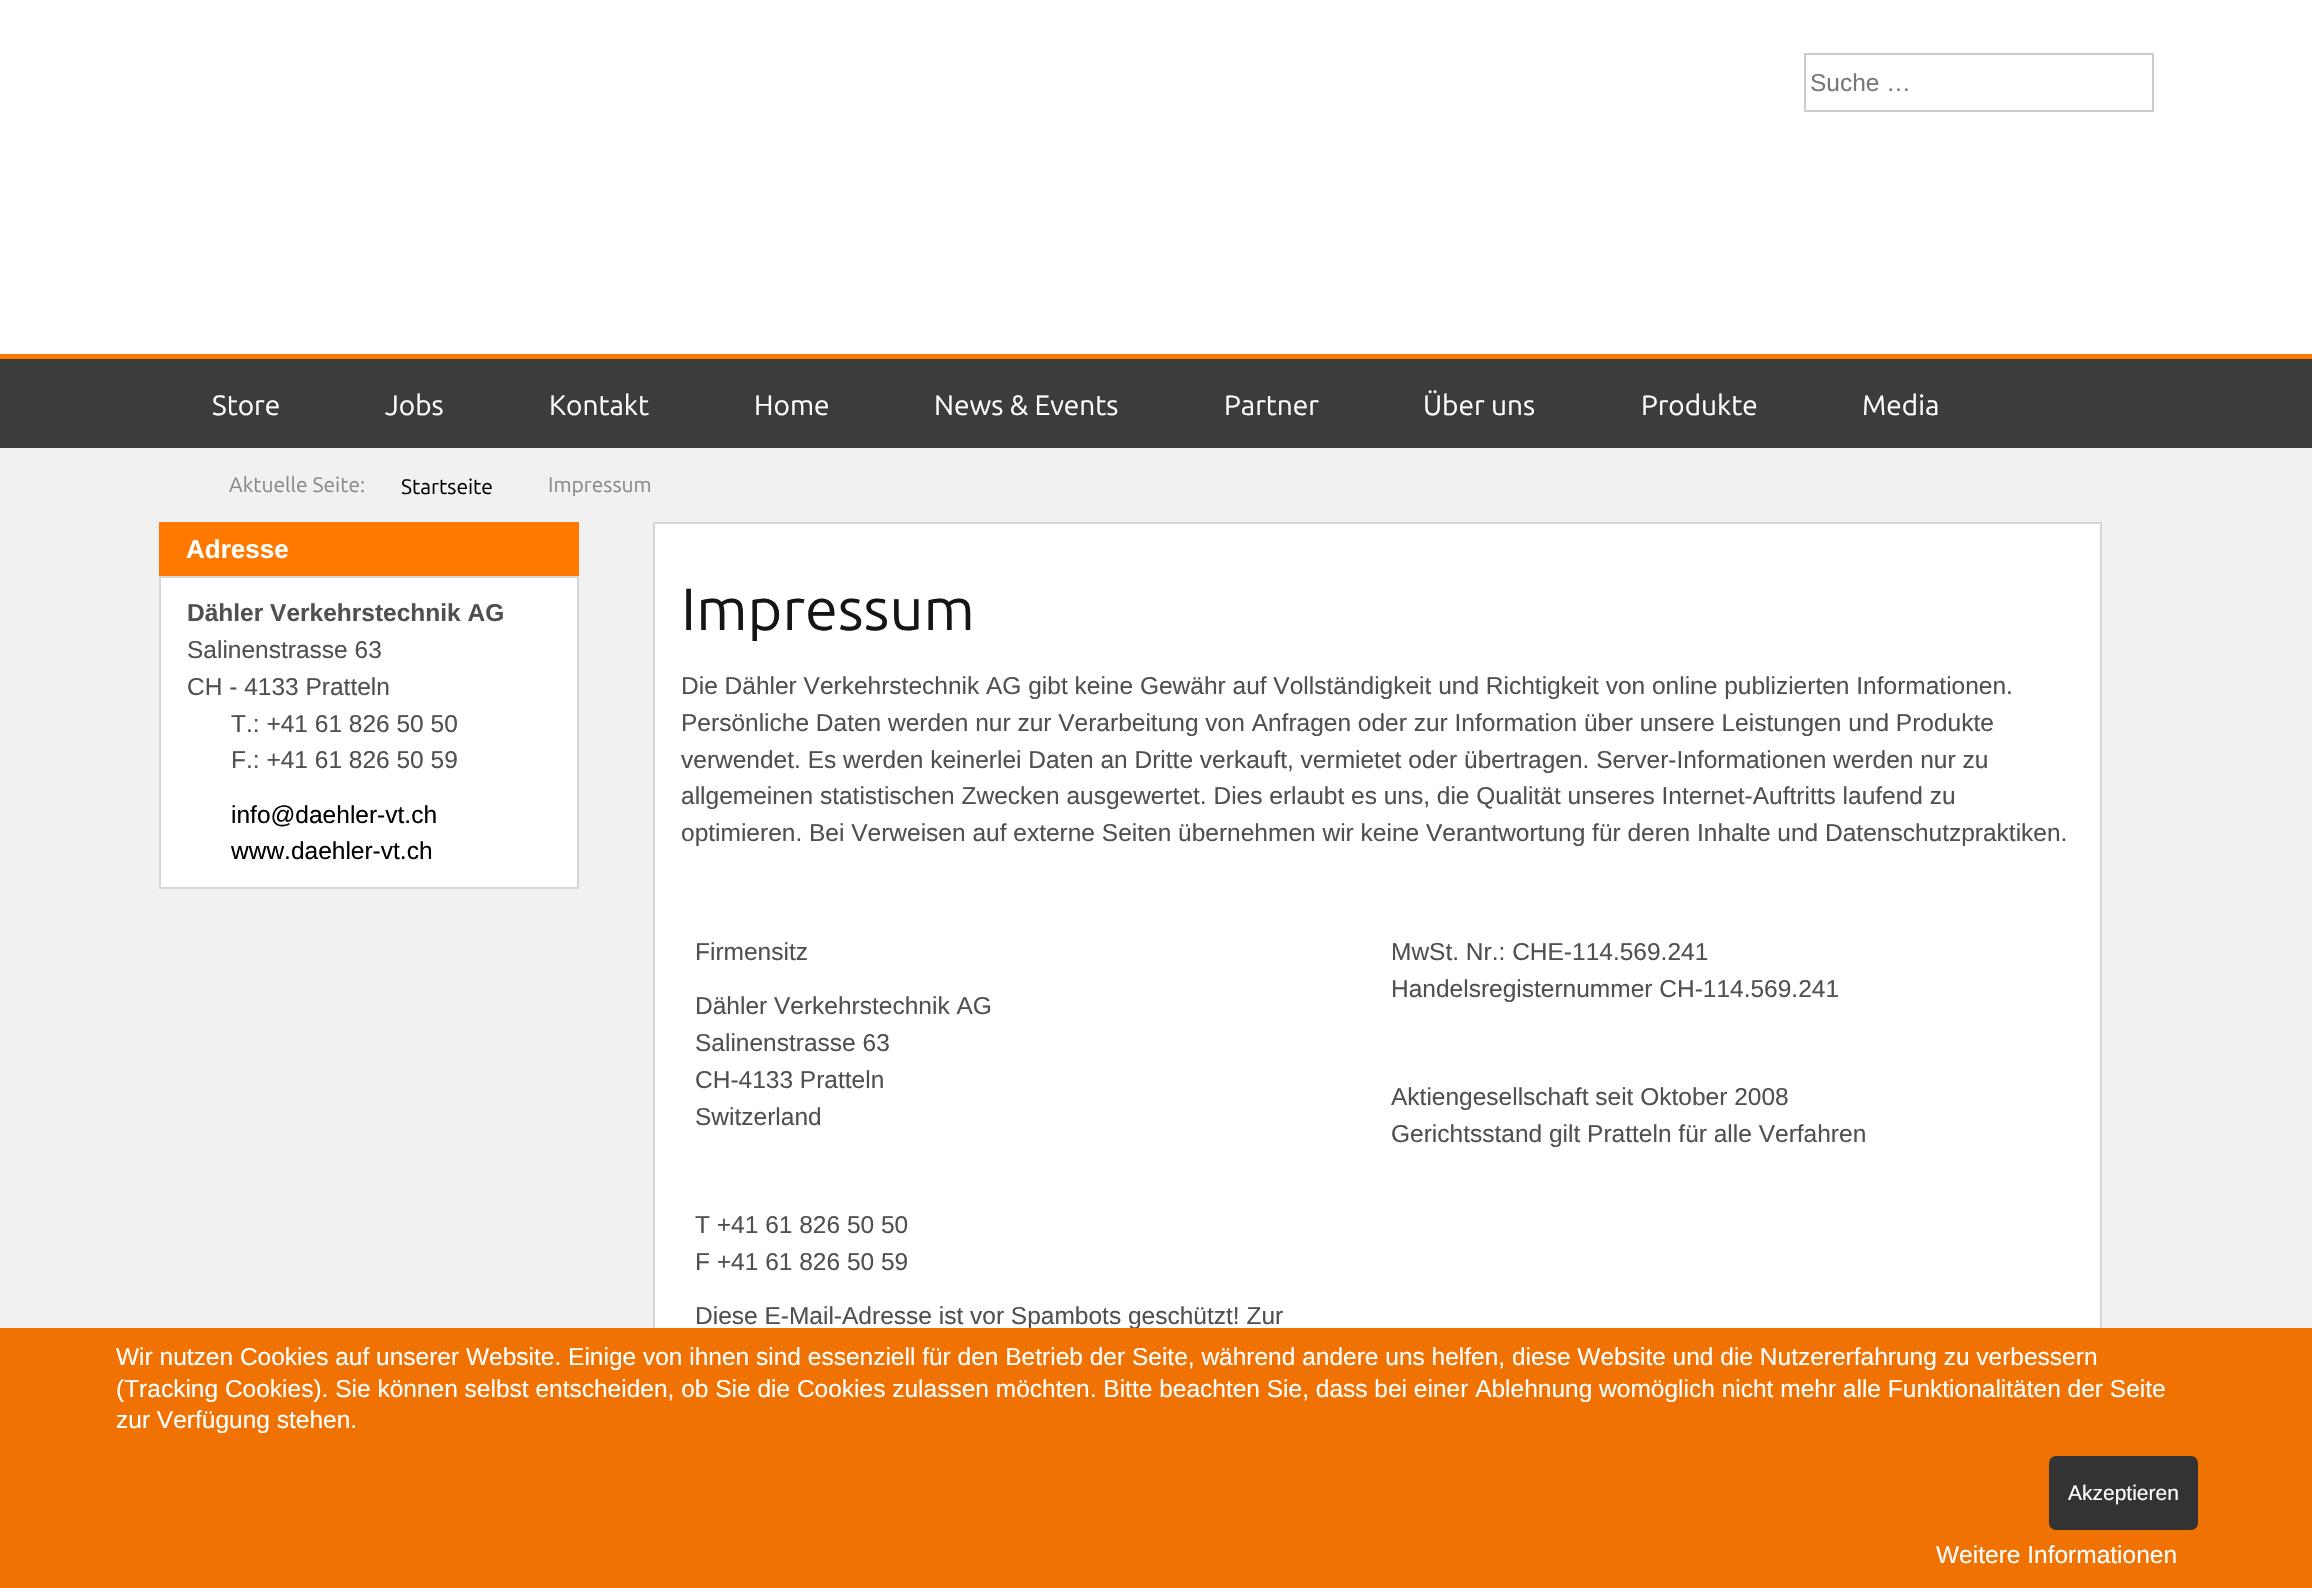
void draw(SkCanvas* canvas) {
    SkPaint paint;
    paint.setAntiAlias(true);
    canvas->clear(0xFFF1F1F1);
    paint.setColor(0xFFFFFFFF);
    canvas->drawRect(SkRect::MakeXYWH(0, 0, 2312, 354), paint);
    paint.setStyle(SkPaint::kStroke_Style);
    paint.setStrokeWidth(2);
    paint.setColor(0xFFCCCCCC);
    canvas->drawRect(SkRect::MakeXYWH(1805, 54, 348, 57), paint);
    SkFont font1(fontMgr->matchFamilyStyle("Liberation Sans", SkFontStyle::Normal()), 24.5f);
    font1.setSubpixel(true);
    paint.setStyle(SkPaint::kFill_Style);
    paint.setColor(0xFF777777);
    canvas->drawString("Suche …", 1810, 91, font1, paint);
    paint.setColor(0xFF3C3C3C);
    canvas->drawRect(SkRect::MakeXYWH(0, 359, 2312, 89), paint);
    paint.setColor(0xFFFF7800);
    canvas->drawRect(SkRect::MakeXYWH(0, 354, 2312, 5), paint);
    SkFont font2(fontMgr->matchFamilyStyle("Ubuntu", SkFontStyle::Normal()), 28);
    font2.setSubpixel(true);
    paint.setColor(0xFFFFFFFF);
    canvas->drawString("Store", 212, 415, font2, paint);
    canvas->drawString("Jobs", 385, 415, font2, paint);
    canvas->drawString("Kontakt", 549, 415, font2, paint);
    canvas->drawString("Home", 754, 415, font2, paint);
    canvas->drawString("News & Events", 934, 415, font2, paint);
    canvas->drawString("Partner", 1224, 415, font2, paint);
    canvas->drawString("Über uns", 1423, 415, font2, paint);
    canvas->drawString("Produkte", 1641, 415, font2, paint);
    canvas->drawString("Media", 1862, 415, font2, paint);
    SkFont font3(fontMgr->matchFamilyStyle("Ubuntu", SkFontStyle::Normal()), 21);
    font3.setSubpixel(true);
    paint.setColor(0xFF888888);
    canvas->drawString("Aktuelle Seite:", 229, 492, font3, paint);
    paint.setColor(0xFF000000);
    canvas->drawString("Startseite", 401, 494, font3, paint);
    paint.setColor(0xFF888888);
    canvas->drawString("Impressum", 548, 492, font3, paint);
    paint.setColor(0xFFFF7800);
    canvas->drawRect(SkRect::MakeXYWH(159, 522, 420, 54), paint);
    SkFont font4(fontMgr->matchFamilyStyle("Liberation Sans", SkFontStyle::Bold()), 26);
    font4.setSubpixel(true);
    paint.setColor(0xFFFFFFFF);
    canvas->drawString("Adresse", 186, 558, font4, paint);
    canvas->drawRect(SkRect::MakeXYWH(160, 577, 418, 311), paint);
    paint.setStyle(SkPaint::kStroke_Style);
    paint.setColor(0xFFD6D6D6);
    canvas->drawRect(SkRect::MakeXYWH(160, 577, 418, 311), paint);
    SkFont font5(fontMgr->matchFamilyStyle("Liberation Sans", SkFontStyle::Bold()), 24.5f);
    font5.setSubpixel(true);
    paint.setStyle(SkPaint::kFill_Style);
    paint.setColor(0xFF505050);
    canvas->drawString("Dähler Verkehrstechnik AG", 187, 621, font5, paint);
    canvas->drawString("Salinenstrasse 63", 187, 658, font1, paint);
    canvas->drawString("CH - 4133 Pratteln", 187, 695, font1, paint);
    canvas->drawString("T.: +41 61 826 50 50", 231, 732, font1, paint);
    canvas->drawString("F.: +41 61 826 50 59", 231, 768, font1, paint);
    paint.setColor(0xFF000000);
    canvas->drawString("info@daehler-vt.ch", 231, 823, font1, paint);
    canvas->drawString("www.daehler-vt.ch", 231, 859, font1, paint);
    paint.setColor(0xFFFFFFFF);
    canvas->drawRect(SkRect::MakeXYWH(655, 524, 1445, 804), paint);
    paint.setStyle(SkPaint::kStroke_Style);
    paint.setColor(0xFFD6D6D6);
    canvas->drawRect(SkRect::MakeXYWH(654, 523, 1447, 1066), paint);
    SkFont font6(fontMgr->matchFamilyStyle("Ubuntu", SkFontStyle::Normal()), 59.5f);
    font6.setSubpixel(true);
    paint.setStyle(SkPaint::kFill_Style);
    paint.setColor(0xFF151515);
    canvas->drawString("Impressum", 681, 630, font6, paint);
    paint.setColor(0xFF505050);
    canvas->drawString("Die Dähler Verkehrstechnik AG gibt keine Gewähr auf Vollständigkeit und Richtigkeit von online publizierten Informationen.", 681, 694, font1, paint);
    canvas->drawString("Persönliche Daten werden nur zur Verarbeitung von Anfragen oder zur Information über unsere Leistungen und Produkte", 681, 731, font1, paint);
    canvas->drawString("verwendet. Es werden keinerlei Daten an Dritte verkauft, vermietet oder übertragen. Server-Informationen werden nur zu", 681, 768, font1, paint);
    canvas->drawString("allgemeinen statistischen Zwecken ausgewertet. Dies erlaubt es uns, die Qualität unseres Internet-Auftritts laufend zu", 681, 804, font1, paint);
    canvas->drawString("optimieren. Bei Verweisen auf externe Seiten übernehmen wir keine Verantwortung für deren Inhalte und Datenschutzpraktiken.", 681, 841, font1, paint);
    canvas->drawString("Firmensitz", 695, 960, font1, paint);
    canvas->drawString("Dähler Verkehrstechnik AG", 695, 1014, font1, paint);
    canvas->drawString("Salinenstrasse 63", 695, 1051, font1, paint);
    canvas->drawString("CH-4133 Pratteln", 695, 1088, font1, paint);
    canvas->drawString("Switzerland", 695, 1125, font1, paint);
    canvas->drawString("T +41 61 826 50 50", 695, 1233, font1, paint);
    canvas->drawString("F +41 61 826 50 59", 695, 1270, font1, paint);
    canvas->drawString("Diese E-Mail-Adresse ist vor Spambots geschützt! Zur", 695, 1324, font1, paint);
    canvas->drawString("MwSt. Nr.: CHE-114.569.241", 1391, 960, font1, paint);
    canvas->drawString("Handelsregisternummer CH-114.569.241", 1391, 997, font1, paint);
    canvas->drawString("Aktiengesellschaft seit Oktober 2008", 1391, 1105, font1, paint);
    canvas->drawString("Gerichtsstand gilt Pratteln für alle Verfahren", 1391, 1142, font1, paint);
    paint.setColor(0xFFEF7202);
    canvas->drawRect(SkRect::MakeXYWH(0, 1328, 2312, 260), paint);
    paint.setColor(0xFFFFFFFF);
    canvas->drawString("Wir nutzen Cookies auf unserer Website. Einige von ihnen sind essenziell für den Betrieb der Seite, während andere uns helfen, diese Website und die Nutzererfahrung zu verbessern", 116, 1365, font1, paint);
    canvas->drawString("(Tracking Cookies). Sie können selbst entscheiden, ob Sie die Cookies zulassen möchten. Bitte beachten Sie, dass bei einer Ablehnung womöglich nicht mehr alle Funktionalitäten der Seite", 116, 1397, font1, paint);
    canvas->drawString("zur Verfügung stehen.", 116, 1428, font1, paint);
    paint.setColor(0xFF333333);
    canvas->drawRoundRect(SkRect::MakeXYWH(2049, 1456, 149, 74), 7, 7, paint);
    SkFont font7(fontMgr->matchFamilyStyle("Liberation Sans", SkFontStyle::Normal()), 21);
    font7.setSubpixel(true);
    paint.setColor(0xFFFFFFFF);
    canvas->drawString("Akzeptieren", 2068, 1500, font7, paint);
    canvas->drawString("Weitere Informationen", 1936, 1563, font1, paint);
}
